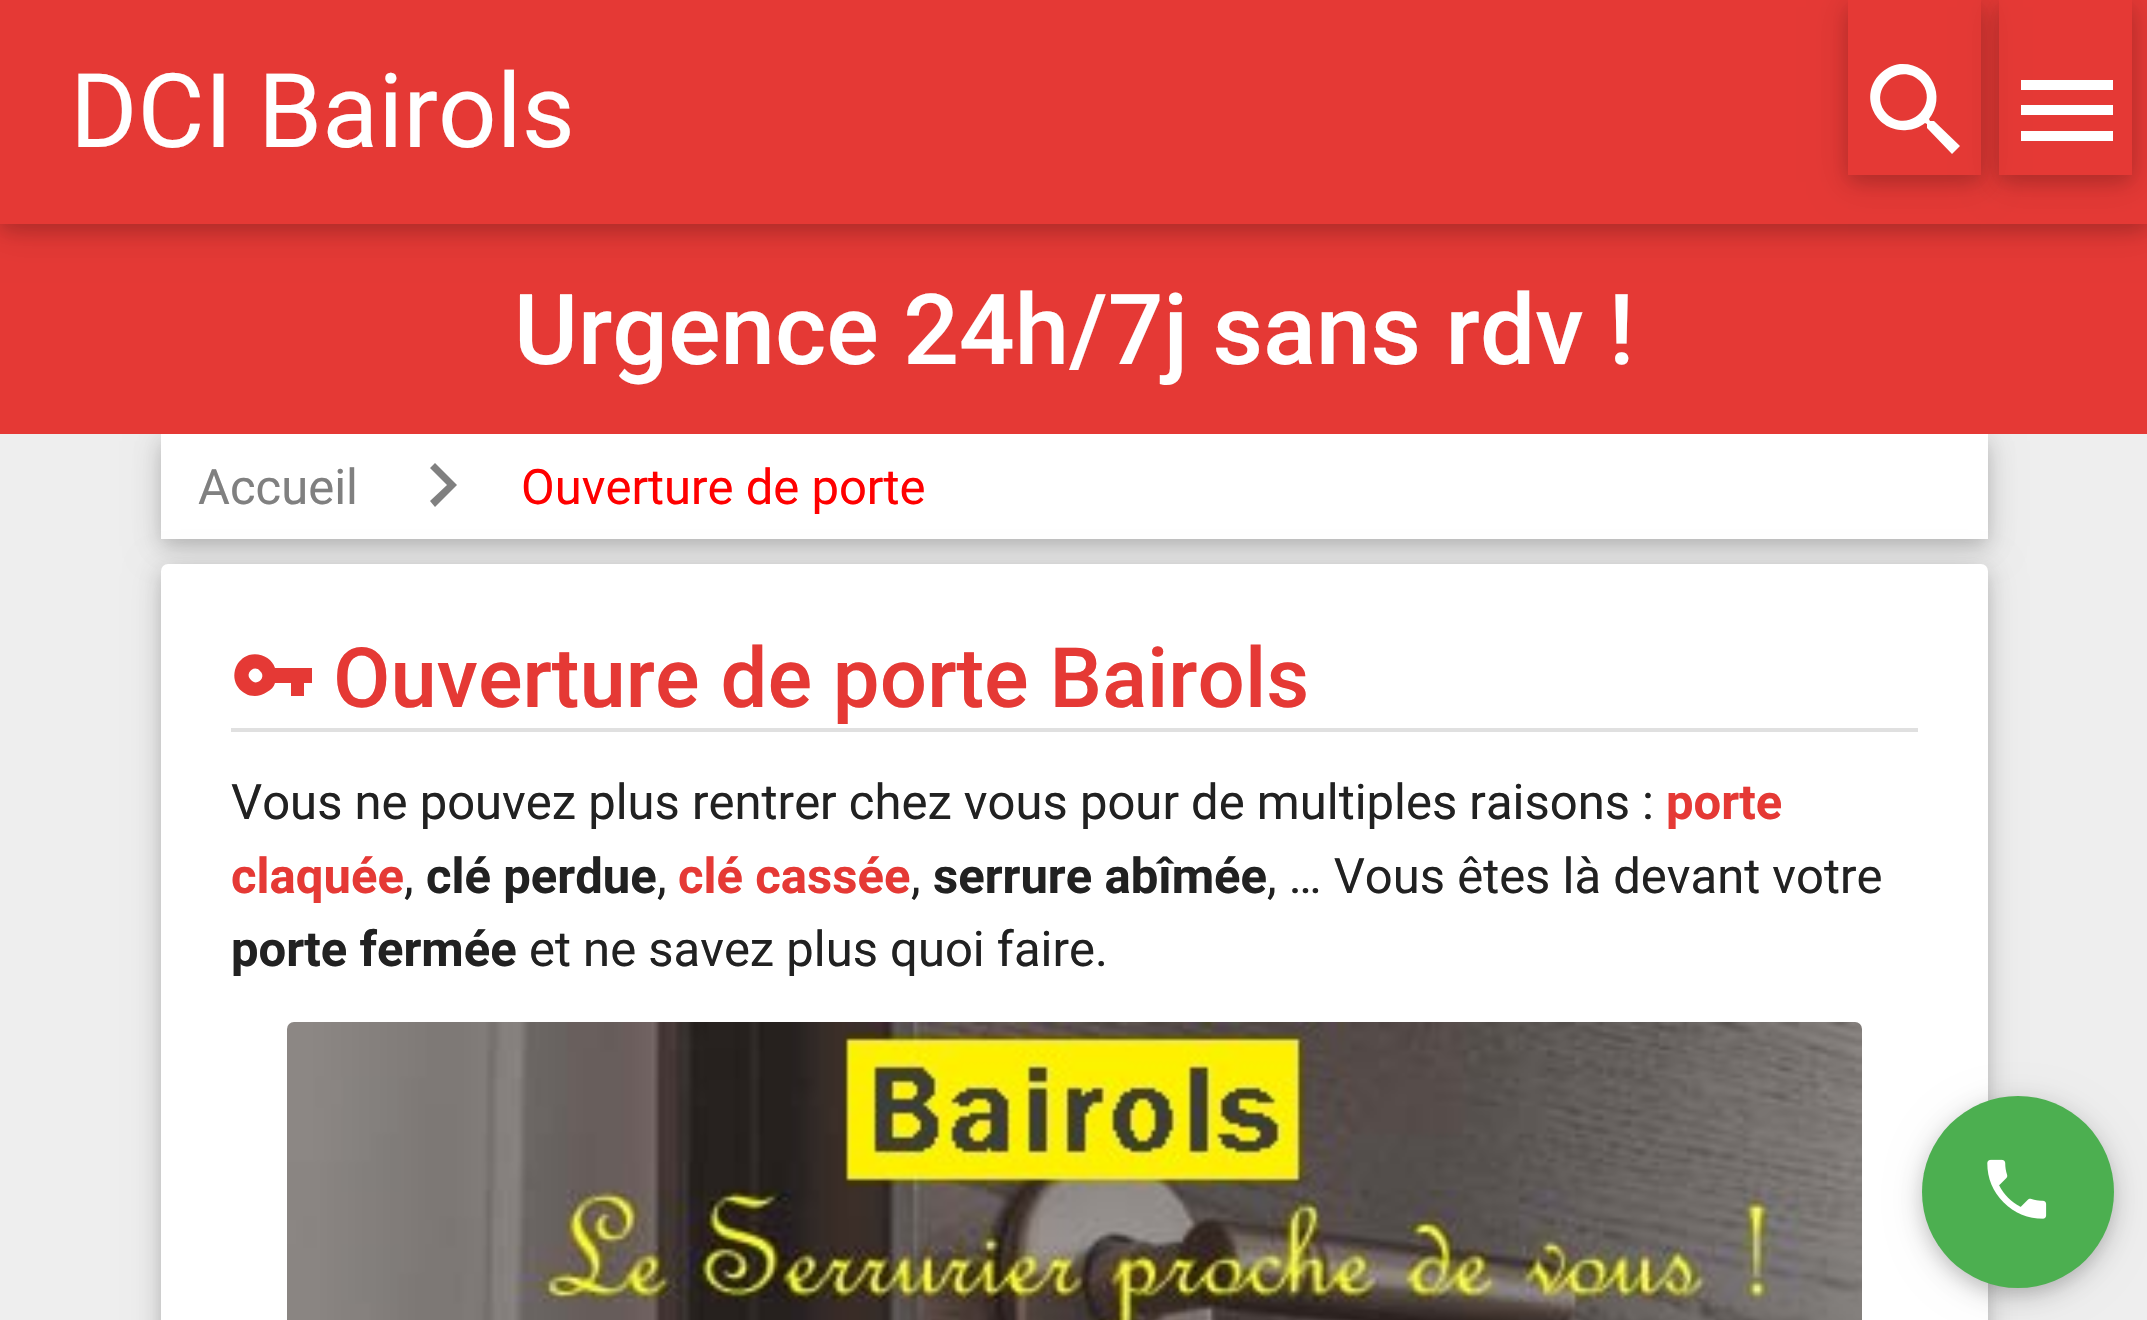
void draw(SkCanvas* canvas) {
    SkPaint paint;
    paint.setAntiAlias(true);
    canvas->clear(0xFFEEEEEE);
    paint.setColor(0x1F000000);
    paint.setMaskFilter(SkMaskFilter::MakeBlur(kNormal_SkBlurStyle, 17.5f));
    canvas->drawRect(SkRect::MakeXYWH(161, 441, 1827, 105), paint);
    paint.setMaskFilter(nullptr);
    paint.setColor(0x29000000);
    paint.setMaskFilter(SkMaskFilter::MakeBlur(kNormal_SkBlurStyle, 9));
    canvas->drawRect(SkRect::MakeXYWH(161, 441, 1827, 105), paint);
    paint.setMaskFilter(nullptr);
    paint.setColor(0xFFE53935);
    canvas->drawRect(SkRect::MakeXYWH(0, 224, 2147, 210), paint);
    paint.setColor(0x1F000000);
    paint.setMaskFilter(SkMaskFilter::MakeBlur(kNormal_SkBlurStyle, 17.5f));
    canvas->drawRect(SkRect::MakeXYWH(0, 7, 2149, 224), paint);
    paint.setMaskFilter(nullptr);
    paint.setColor(0x29000000);
    paint.setMaskFilter(SkMaskFilter::MakeBlur(kNormal_SkBlurStyle, 9));
    canvas->drawRect(SkRect::MakeXYWH(0, 7, 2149, 224), paint);
    paint.setMaskFilter(nullptr);
    paint.setColor(0xFFE53935);
    canvas->drawRect(SkRect::MakeXYWH(0, 0, 2147, 224), paint);
    SkFont font1(fontMgr->matchFamilyStyle("Roboto", SkFontStyle::Normal()), 103);
    font1.setSubpixel(true);
    paint.setColor(0xFFFFFFFF);
    canvas->drawString("DCI Bairols", 70, 147, font1, paint);
    canvas->save();
    canvas->clipPath(SkPathBuilder(SkPathFillType::kEvenOdd).moveTo(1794, 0).lineTo(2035, 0).lineTo(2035, 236).lineTo(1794, 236).close().moveTo(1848, 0).lineTo(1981, 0).lineTo(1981, 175).lineTo(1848, 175).close().detach(), true);
    paint.setColor(0x1F000000);
    paint.setMaskFilter(SkMaskFilter::MakeBlur(kNormal_SkBlurStyle, 17.5f));
    canvas->drawRect(SkRect::MakeXYWH(1848, 7, 133, 175), paint);
    paint.setMaskFilter(nullptr);
    canvas->restore();
    canvas->save();
    canvas->clipPath(SkPathBuilder(SkPathFillType::kEvenOdd).moveTo(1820, 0).lineTo(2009, 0).lineTo(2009, 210).lineTo(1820, 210).close().moveTo(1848, 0).lineTo(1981, 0).lineTo(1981, 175).lineTo(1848, 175).close().detach(), true);
    paint.setColor(0x29000000);
    paint.setMaskFilter(SkMaskFilter::MakeBlur(kNormal_SkBlurStyle, 9));
    canvas->drawRect(SkRect::MakeXYWH(1848, 7, 133, 175), paint);
    paint.setMaskFilter(nullptr);
    canvas->restore();
    paint.setColor(0xFFFFFFFF);
    canvas->drawPath(SkPathBuilder().moveTo(1887, 114).cubicTo(1909, 135, 1941, 103, 1920, 81).cubicTo(1898, 60, 1866, 92, 1887, 114).close().moveTo(1934, 121).lineTo(1960, 146).lineTo(1952, 154).lineTo(1927, 128).lineTo(1927, 124).lineTo(1925, 123).cubicTo(1920, 127, 1913, 130, 1907, 130).cubicTo(1876, 133, 1858, 96, 1880, 74).cubicTo(1885, 69, 1892, 65, 1900, 64).cubicTo(1931, 62, 1947, 96, 1929, 119).lineTo(1930, 121).close().detach(), paint);
    canvas->save();
    canvas->clipPath(SkPathBuilder(SkPathFillType::kEvenOdd).moveTo(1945, 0).lineTo(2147, 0).lineTo(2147, 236).lineTo(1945, 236).close().moveTo(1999, 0).lineTo(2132, 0).lineTo(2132, 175).lineTo(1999, 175).close().detach(), true);
    paint.setColor(0x1F000000);
    paint.setMaskFilter(SkMaskFilter::MakeBlur(kNormal_SkBlurStyle, 17.5f));
    canvas->drawRect(SkRect::MakeXYWH(1999, 7, 133, 175), paint);
    paint.setMaskFilter(nullptr);
    canvas->restore();
    canvas->save();
    canvas->clipPath(SkPathBuilder(SkPathFillType::kEvenOdd).moveTo(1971, 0).lineTo(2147, 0).lineTo(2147, 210).lineTo(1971, 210).close().moveTo(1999, 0).lineTo(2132, 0).lineTo(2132, 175).lineTo(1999, 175).close().detach(), true);
    paint.setColor(0x29000000);
    paint.setMaskFilter(SkMaskFilter::MakeBlur(kNormal_SkBlurStyle, 9));
    canvas->drawRect(SkRect::MakeXYWH(1999, 7, 133, 175), paint);
    paint.setMaskFilter(nullptr);
    canvas->restore();
    paint.setColor(0xFFFFFFFF);
    canvas->drawPath(SkPathBuilder().moveTo(2021, 80).lineTo(2113, 80).lineTo(2113, 90).lineTo(2021, 90).close().moveTo(2021, 115).lineTo(2021, 105).lineTo(2113, 105).lineTo(2113, 115).close().moveTo(2021, 141).lineTo(2021, 131).lineTo(2113, 131).lineTo(2113, 141).close().detach(), paint);
    SkFont font2(fontMgr->matchFamilyStyle("Roboto", SkFontStyle(500, SkFontStyle::kNormal_Width, SkFontStyle::kUpright_Slant)), 98);
    font2.setSubpixel(true);
    canvas->drawString("Urgence 24h/7j sans rdv !", 514, 364, font2, paint);
    canvas->drawRect(SkRect::MakeXYWH(161, 434, 1827, 105), paint);
    SkFont font3(fontMgr->matchFamilyStyle("Roboto", SkFontStyle::Normal()), 49);
    font3.setSubpixel(true);
    paint.setColor(0xFF808080);
    canvas->drawString("Accueil", 198, 504, font3, paint);
    canvas->drawPath(SkPathBuilder().moveTo(435, 463).lineTo(457, 485).lineTo(435, 507).lineTo(430, 501).lineTo(447, 485).lineTo(430, 468).close().detach(), paint);
    paint.setColor(0xFFFF0000);
    canvas->drawString("Ouverture de porte", 521, 504, font3, paint);
    paint.setColor(0x1F000000);
    paint.setMaskFilter(SkMaskFilter::MakeBlur(kNormal_SkBlurStyle, 17.5f));
    canvas->drawRoundRect(SkRect::MakeXYWH(161, 571, 1827, 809), 7, 7, paint);
    paint.setMaskFilter(nullptr);
    paint.setColor(0x29000000);
    paint.setMaskFilter(SkMaskFilter::MakeBlur(kNormal_SkBlurStyle, 9));
    canvas->drawRoundRect(SkRect::MakeXYWH(161, 571, 1827, 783), 7, 7, paint);
    paint.setMaskFilter(nullptr);
    paint.setColor(0xFFFFFFFF);
    canvas->drawRoundRect(SkRect::MakeXYWH(161, 564, 1827, 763), 7, 7, paint);
    paint.setColor(0xFFE53935);
    canvas->drawPath(SkPathBuilder().moveTo(251, 680).cubicTo(257, 687, 267, 677, 260, 671).cubicTo(254, 664, 244, 674, 251, 680).close().moveTo(275, 668).lineTo(312, 668).lineTo(312, 683).lineTo(304, 683).lineTo(304, 696).lineTo(291, 696).lineTo(291, 683).lineTo(275, 683).cubicTo(274, 687, 271, 690, 267, 692).cubicTo(250, 704, 228, 687, 236, 667).cubicTo(238, 662, 243, 657, 249, 655).cubicTo(260, 652, 272, 658, 275, 668).close().detach(), paint);
    SkFont font4(fontMgr->matchFamilyStyle("Roboto", SkFontStyle(500, SkFontStyle::kNormal_Width, SkFontStyle::kUpright_Slant)), 83.25f);
    font4.setSubpixel(true);
    canvas->drawString("Ouverture de porte Bairols", 333, 707, font4, paint);
    paint.setColor(0xFFE0E0E0);
    canvas->drawRect(SkRect::MakeXYWH(231, 728, 1687, 4), paint);
    paint.setColor(0xFF212121);
    canvas->drawString("Vous ne pouvez plus rentrer chez vous pour de multiples raisons :", 231, 819, font3, paint);
    SkFont font5(fontMgr->matchFamilyStyle("Roboto", SkFontStyle::Bold()), 49);
    font5.setSubpixel(true);
    paint.setColor(0xFFE53935);
    canvas->drawString("porte", 1666, 819, font5, paint);
    canvas->drawString("claquée", 231, 893, font5, paint);
    paint.setColor(0xFF212121);
    canvas->drawString(",", 404, 893, font3, paint);
    canvas->drawString("clé perdue", 426, 893, font5, paint);
    canvas->drawString(",", 657, 893, font3, paint);
    paint.setColor(0xFFE53935);
    canvas->drawString("clé cassée", 678, 893, font5, paint);
    paint.setColor(0xFF212121);
    canvas->drawString(",", 911, 893, font3, paint);
    canvas->drawString("serrure abîmée", 933, 893, font5, paint);
    canvas->drawString(", … Vous êtes là devant votre", 1267, 893, font3, paint);
    canvas->drawString("porte fermée", 231, 966, font5, paint);
    canvas->drawString("et ne savez plus quoi faire.", 529, 966, font3, paint);
    canvas->drawImageRect(SkImages::DeferredFromEncodedData(SkData::MakeFromFileName("img1.png")), SkRect::MakeXYWH(287, 1022, 1575, 298), SkSamplingOptions());
    paint.setColor(0x1F000000);
    paint.setMaskFilter(SkMaskFilter::MakeBlur(kNormal_SkBlurStyle, 17.5f));
    canvas->drawRoundRect(SkRect::MakeXYWH(1922, 1103, 192, 192), 96, 96, paint);
    paint.setMaskFilter(nullptr);
    paint.setColor(0x29000000);
    paint.setMaskFilter(SkMaskFilter::MakeBlur(kNormal_SkBlurStyle, 9));
    canvas->drawRoundRect(SkRect::MakeXYWH(1922, 1103, 192, 192), 96, 96, paint);
    paint.setMaskFilter(nullptr);
    paint.setColor(0xFF4CAF50);
    canvas->drawCircle(2018, 1192, 96, paint);
    canvas->drawImageRect(SkImages::DeferredFromEncodedData(SkData::MakeFromFileName("img2.png")), SkRect::MakeXYWH(1987, 1159, 60, 60), SkSamplingOptions());
}
